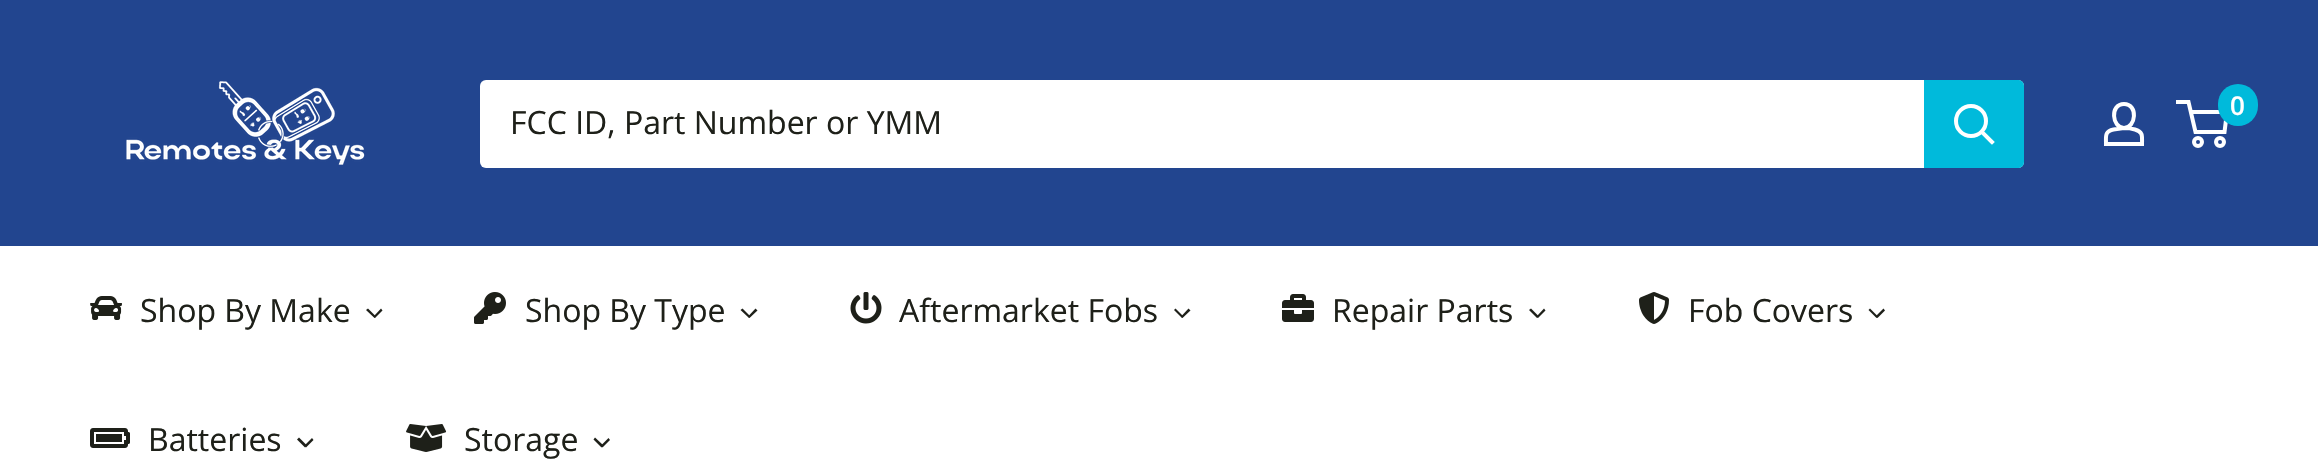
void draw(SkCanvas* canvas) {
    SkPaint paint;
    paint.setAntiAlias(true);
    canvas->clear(0xFFFFFFFF);
    paint.setColor(0xFF22458F);
    canvas->drawRect(SkRect::MakeXYWH(0, 0, 2318, 246), paint);
    canvas->drawImageRect(SkImages::DeferredFromEncodedData(SkData::MakeFromFileName("img1.png")), SkRect::MakeXYWH(126, 81, 239, 84), SkSamplingOptions());
    paint.setStyle(SkPaint::kStroke_Style);
    paint.setStrokeWidth(4);
    paint.setColor(0xFFFFFFFF);
    canvas->drawPath(SkPathBuilder().moveTo(2124, 128).cubicTo(2128, 128, 2131.5f, 128.5f, 2135, 129.5f).cubicTo(2143.5f, 132, 2142, 136.5f, 2142, 144).lineTo(2106, 144).cubicTo(2106, 136, 2104.5f, 131.5f, 2113.5f, 129.5f).close().moveTo(2124, 128).cubicTo(2112, 128, 2109.5f, 104, 2124, 104).cubicTo(2138.5f, 104, 2136, 128, 2124, 128).close().detach(), paint);
    canvas->drawCircle(2198, 142, 4, paint);
    canvas->drawCircle(2220, 142, 4, paint);
    canvas->drawPath(SkPathBuilder().moveTo(2190.5f, 112).lineTo(2227, 112).lineTo(2224.5f, 132).lineTo(2195.5f, 132).lineTo(2188.5f, 102).lineTo(2176, 102).detach(), paint);
    paint.setStyle(SkPaint::kFill_Style);
    paint.setColor(0xFF00BADB);
    canvas->drawRoundRect(SkRect::MakeXYWH(2218, 84, 40, 42), 20, 20, paint);
    SkFont font1(fontMgr->matchFamilyStyle("Open Sans", SkFontStyle(600, SkFontStyle::kNormal_Width, SkFontStyle::kUpright_Slant)), 26);
    font1.setSubpixel(true);
    paint.setColor(0xFFFFFFFF);
    canvas->drawString("0", 2230, 115, font1, paint);
    canvas->drawRoundRect(SkRect::MakeXYWH(480, 80, 1544, 88), 6, 6, paint);
    SkFont font2(fontMgr->matchFamilyStyle("Open Sans", SkFontStyle::Normal()), 32);
    font2.setSubpixel(true);
    paint.setColor(0xFF1E2019);
    canvas->drawString("FCC ID, Part Number or YMM", 510, 134, font2, paint);
    paint.setColor(0xFF00BADB);
    canvas->drawPath(SkPathBuilder().moveTo(1924, 80).lineTo(2018, 80).cubicTo(2021.5f, 80, 2024, 82.5f, 2024, 86).lineTo(2024, 162).cubicTo(2024, 165.5f, 2021.5f, 168, 2018, 168).lineTo(1924, 168).close().detach(), paint);
    paint.setStyle(SkPaint::kStroke_Style);
    paint.setStrokeCap(SkPaint::kSquare_Cap);
    paint.setColor(0xFFFFFFFF);
    canvas->drawPath(SkPathBuilder().moveTo(1992, 142).lineTo(1982, 132).detach(), paint);
    paint.setStrokeCap(SkPaint::kButt_Cap);
    canvas->drawCircle(1971, 121, 15, paint);
    canvas->drawImageRect(SkImages::DeferredFromEncodedData(SkData::MakeFromFileName("img2.png")), SkRect::MakeXYWH(90, 296, 32, 24), SkSamplingOptions());
    paint.setStyle(SkPaint::kFill_Style);
    paint.setColor(0xFF1E2019);
    canvas->drawString("Shop By Make", 140, 322, font2, paint);
    canvas->drawPath(SkPathBuilder().moveTo(381, 308.5f).lineTo(382.5f, 310.5f).lineTo(375, 318).lineTo(373.5f, 316.5f).close().detach(), paint);
    canvas->drawPath(SkPathBuilder().moveTo(368, 308.5f).lineTo(376, 316.5f).lineTo(374.5f, 318).lineTo(366, 310).close().detach(), paint);
    canvas->drawImageRect(SkImages::DeferredFromEncodedData(SkData::MakeFromFileName("img3.png")), SkRect::MakeXYWH(474, 292, 32, 32), SkSamplingOptions());
    canvas->drawString("Shop By Type", 525, 322, font2, paint);
    canvas->drawPath(SkPathBuilder().moveTo(755.5f, 308.5f).lineTo(757.5f, 310.5f).lineTo(749.5f, 318).lineTo(748, 316.5f).close().detach(), paint);
    canvas->drawPath(SkPathBuilder().moveTo(742.5f, 308.5f).lineTo(750.5f, 316.5f).lineTo(749, 318).lineTo(740.5f, 310).close().detach(), paint);
    canvas->drawImageRect(SkImages::DeferredFromEncodedData(SkData::MakeFromFileName("img4.png")), SkRect::MakeXYWH(850, 292, 32, 32), SkSamplingOptions());
    canvas->drawString("Aftermarket Fobs", 899, 322, font2, paint);
    canvas->drawPath(SkPathBuilder().moveTo(1188.5f, 308.5f).lineTo(1190.5f, 310.5f).lineTo(1182.5f, 318).lineTo(1181, 316.5f).close().detach(), paint);
    canvas->drawPath(SkPathBuilder().moveTo(1175.5f, 308.5f).lineTo(1183.5f, 316.5f).lineTo(1182, 318).lineTo(1174, 310).close().detach(), paint);
    canvas->drawImageRect(SkImages::DeferredFromEncodedData(SkData::MakeFromFileName("img5.png")), SkRect::MakeXYWH(1282, 294, 32, 28), SkSamplingOptions());
    canvas->drawString("Repair Parts", 1332, 322, font2, paint);
    canvas->drawPath(SkPathBuilder().moveTo(1544, 308.5f).lineTo(1545.5f, 310.5f).lineTo(1538, 318).lineTo(1536.5f, 316.5f).close().detach(), paint);
    canvas->drawPath(SkPathBuilder().moveTo(1531, 308.5f).lineTo(1539, 316.5f).lineTo(1537, 318).lineTo(1529, 310).close().detach(), paint);
    canvas->drawImageRect(SkImages::DeferredFromEncodedData(SkData::MakeFromFileName("img6.png")), SkRect::MakeXYWH(1639, 292, 30, 32), SkSamplingOptions());
    canvas->drawString("Fob Covers", 1688, 322, font2, paint);
    canvas->drawPath(SkPathBuilder().moveTo(1883.5f, 308.5f).lineTo(1885, 310.5f).lineTo(1877.5f, 318).lineTo(1875.5f, 316.5f).close().detach(), paint);
    canvas->drawPath(SkPathBuilder().moveTo(1870, 308.5f).lineTo(1878, 316.5f).lineTo(1876.5f, 318).lineTo(1868.5f, 310).close().detach(), paint);
    canvas->drawImageRect(SkImages::DeferredFromEncodedData(SkData::MakeFromFileName("img7.png")), SkRect::MakeXYWH(90, 428, 40, 20), SkSamplingOptions());
    canvas->drawString("Batteries", 148, 451, font2, paint);
    canvas->drawPath(SkPathBuilder().moveTo(312, 438).lineTo(313.5f, 440).lineTo(306, 447.5f).lineTo(304.5f, 445.5f).close().detach(), paint);
    canvas->drawPath(SkPathBuilder().moveTo(299, 437.5f).lineTo(307, 445.5f).lineTo(305, 447.5f).lineTo(297, 439.5f).close().detach(), paint);
    canvas->drawImageRect(SkImages::DeferredFromEncodedData(SkData::MakeFromFileName("img8.png")), SkRect::MakeXYWH(406, 424, 41, 28), SkSamplingOptions());
    canvas->drawString("Storage", 464, 451, font2, paint);
    canvas->drawPath(SkPathBuilder().moveTo(608.5f, 438).lineTo(610, 440).lineTo(602.5f, 447.5f).lineTo(601, 445.5f).close().detach(), paint);
    canvas->drawPath(SkPathBuilder().moveTo(595, 437.5f).lineTo(603.5f, 445.5f).lineTo(601.5f, 447.5f).lineTo(593.5f, 439.5f).close().detach(), paint);
}
